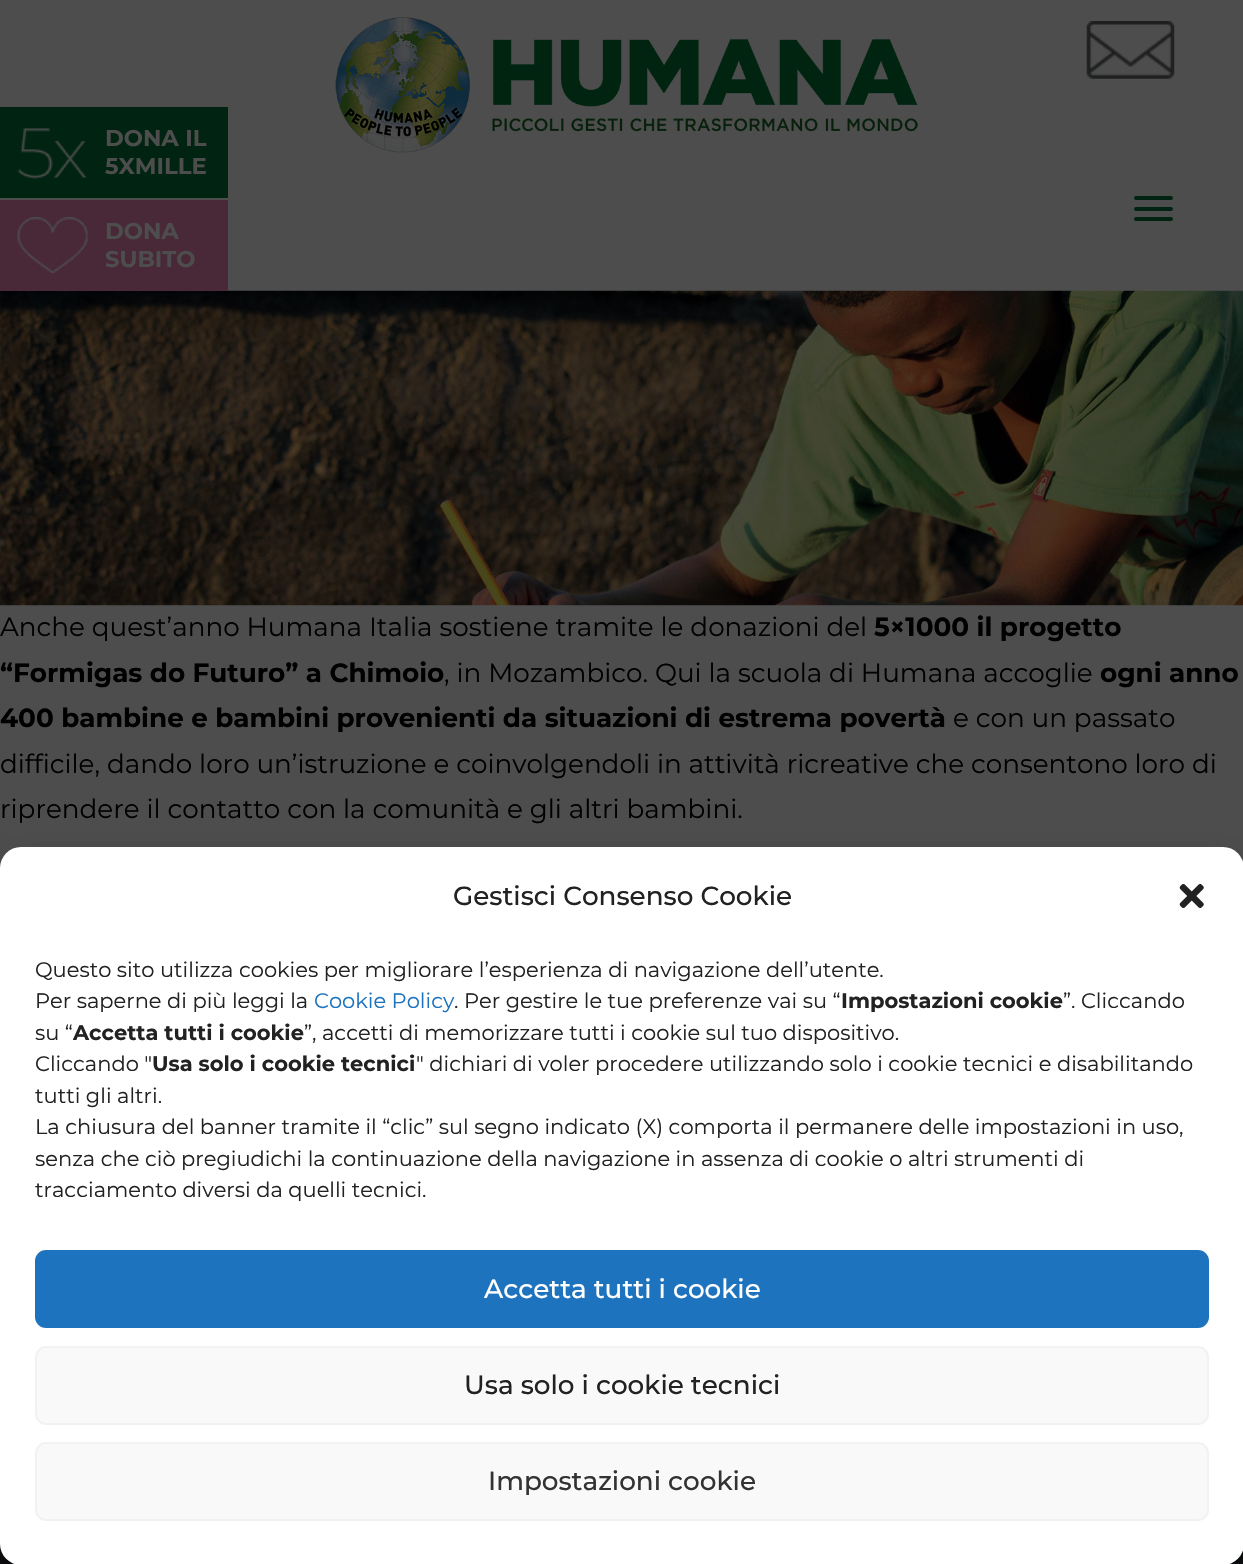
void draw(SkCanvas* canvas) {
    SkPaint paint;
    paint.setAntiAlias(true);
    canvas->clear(0xFF4D4D4D);
    paint.setColor(0xFF002411);
    canvas->drawRect(SkRect::MakeXYWH(0, 107, 228, 91), paint);
    canvas->drawImageRect(SkImages::DeferredFromEncodedData(SkData::MakeFromFileName("img1.png")), SkRect::MakeXYWH(17, 128, 70, 51), SkSamplingOptions());
    SkFont font1(fontMgr->matchFamilyStyle("Montserrat", SkFontStyle::Bold()), 22.75f);
    font1.setSubpixel(true);
    paint.setColor(0xFF4D4D4D);
    canvas->drawString("DONA IL", 105, 146, font1, paint);
    canvas->drawString("5XMILLE", 105, 174, font1, paint);
    canvas->drawImageRect(SkImages::DeferredFromEncodedData(SkData::MakeFromFileName("img3.png")), SkRect::MakeXYWH(0, 290, 1243, 316), SkSamplingOptions());
    paint.setColor(0xFF492937);
    canvas->drawRect(SkRect::MakeXYWH(0, 200, 228, 91), paint);
    canvas->drawImageRect(SkImages::DeferredFromEncodedData(SkData::MakeFromFileName("img2.png")), SkRect::MakeXYWH(17, 217, 71, 56), SkSamplingOptions());
    paint.setColor(0xFF4D4D4D);
    canvas->drawString("DONA", 105, 239, font1, paint);
    canvas->drawString("SUBITO", 105, 267, font1, paint);
    canvas->drawImageRect(SkImages::DeferredFromEncodedData(SkData::MakeFromFileName("img4.png")), SkRect::MakeXYWH(335, 17, 583, 136), SkSamplingOptions());
    canvas->drawImageRect(SkImages::DeferredFromEncodedData(SkData::MakeFromFileName("img5.png")), SkRect::MakeXYWH(1086, 21, 89, 58), SkSamplingOptions());
    paint.setColor(0xFF002411);
    canvas->drawRoundRect(SkRect::MakeXYWH(1134, 196, 39, 4), 2, 2, paint);
    canvas->drawRoundRect(SkRect::MakeXYWH(1134, 207, 39, 4), 2, 2, paint);
    canvas->drawRoundRect(SkRect::MakeXYWH(1134, 217, 39, 4), 2, 2, paint);
    SkFont font2(fontMgr->matchFamilyStyle("Montserrat", SkFontStyle::Normal()), 26.25f);
    font2.setSubpixel(true);
    paint.setColor(0xFF000000);
    canvas->drawString("Anche quest’anno Humana Italia sostiene tramite le donazioni del", 0, 636, font2, paint);
    SkFont font3(fontMgr->matchFamilyStyle("Montserrat", SkFontStyle::Bold()), 26.25f);
    font3.setSubpixel(true);
    canvas->drawString("5×1000 il progetto", 874, 636, font3, paint);
    canvas->drawString("“Formigas do Futuro” a Chimoio", 0, 682, font3, paint);
    canvas->drawString(", in Mozambico. Qui la scuola di Humana accoglie", 444, 682, font2, paint);
    canvas->drawString("ogni anno", 1100, 682, font3, paint);
    canvas->drawString("400 bambine e bambini provenienti da situazioni di estrema povertà", 0, 727, font3, paint);
    canvas->drawString("e con un passato", 953, 727, font2, paint);
    canvas->drawString("difficile, dando loro un’istruzione e coinvolgendoli in attività ricreative che consentono loro di", 0, 773, font2, paint);
    canvas->drawString("riprendere il contatto con la comunità e gli altri bambini.", 0, 818, font2, paint);
    paint.setColor(0xFF0D0E0F);
    canvas->drawRect(SkRect::MakeXYWH(0, 1544, 1243, 20), paint);
    paint.setColor(0x3B000000);
    paint.setMaskFilter(SkMaskFilter::MakeBlur(kNormal_SkBlurStyle, 5));
    canvas->drawRoundRect(SkRect::MakeXYWH(0, 858, 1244, 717), 21, 21, paint);
    paint.setMaskFilter(nullptr);
    paint.setColor(0x30000000);
    paint.setMaskFilter(SkMaskFilter::MakeBlur(kNormal_SkBlurStyle, 17.5f));
    canvas->drawRoundRect(SkRect::MakeXYWH(0, 865, 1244, 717), 21, 21, paint);
    paint.setMaskFilter(nullptr);
    paint.setColor(0xFFFFFFFF);
    canvas->drawRoundRect(SkRect::MakeXYWH(0, 847, 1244, 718), 21, 21, paint);
    SkFont font4(fontMgr->matchFamilyStyle("Montserrat", SkFontStyle(500, SkFontStyle::kNormal_Width, SkFontStyle::kUpright_Slant)), 26.25f);
    font4.setSubpixel(true);
    paint.setColor(0xFF222222);
    canvas->drawString("Gestisci Consenso Cookie", 453, 905, font4, paint);
    canvas->drawImageRect(SkImages::DeferredFromEncodedData(SkData::MakeFromFileName("img6.png")), SkRect::MakeXYWH(1179, 884, 25, 24), SkSamplingOptions());
    SkFont font5(fontMgr->matchFamilyStyle("Montserrat", SkFontStyle::Normal()), 21);
    font5.setSubpixel(true);
    canvas->drawString("Questo sito utilizza cookies per migliorare l’esperienza di navigazione dell’utente.", 35, 977, font5, paint);
    canvas->drawString("Per saperne di più leggi la", 35, 1008, font5, paint);
    paint.setColor(0xFF1E73BE);
    canvas->drawString("Cookie Policy", 314, 1008, font5, paint);
    paint.setColor(0xFF222222);
    canvas->drawString(". Per gestire le tue preferenze vai su “", 454, 1008, font5, paint);
    SkFont font6(fontMgr->matchFamilyStyle("Montserrat", SkFontStyle::Bold()), 21);
    font6.setSubpixel(true);
    canvas->drawString("Impostazioni cookie", 841, 1008, font6, paint);
    canvas->drawString("”. Cliccando", 1063, 1008, font5, paint);
    canvas->drawString("su “", 35, 1040, font5, paint);
    canvas->drawString("Accetta tutti i cookie", 73, 1040, font6, paint);
    canvas->drawString("”, accetti di memorizzare tutti i cookie sul tuo dispositivo.", 304, 1040, font5, paint);
    canvas->drawString("Cliccando \"", 35, 1071, font5, paint);
    canvas->drawString("Usa solo i cookie tecnici", 152, 1071, font6, paint);
    canvas->drawString("\" dichiari di voler procedere utilizzando solo i cookie tecnici e disabilitando", 416, 1071, font5, paint);
    canvas->drawString("tutti gli altri.", 35, 1103, font5, paint);
    canvas->drawString("La chiusura del banner tramite il “clic” sul segno indicato (X) comporta il permanere delle impostazioni in uso,", 35, 1134, font5, paint);
    canvas->drawString("senza che ciò pregiudichi la continuazione della navigazione in assenza di cookie o altri strumenti di", 35, 1166, font5, paint);
    canvas->drawString("tracciamento diversi da quelli tecnici.", 35, 1197, font5, paint);
    paint.setColor(0xFF1E73BE);
    canvas->drawRoundRect(SkRect::MakeXYWH(36, 1251, 1172, 76), 10, 10, paint);
    paint.setStyle(SkPaint::kStroke_Style);
    paint.setStrokeWidth(2);
    canvas->drawRoundRect(SkRect::MakeXYWH(36, 1251, 1172, 76), 10, 10, paint);
    paint.setStyle(SkPaint::kFill_Style);
    paint.setColor(0xFFFFFFFF);
    canvas->drawString("Accetta tutti i cookie", 484, 1298, font4, paint);
    paint.setColor(0xFFF9F9F9);
    canvas->drawRoundRect(SkRect::MakeXYWH(36, 1347, 1172, 77), 10, 10, paint);
    paint.setStyle(SkPaint::kStroke_Style);
    paint.setColor(0xFFF2F2F2);
    canvas->drawRoundRect(SkRect::MakeXYWH(36, 1347, 1172, 77), 10, 10, paint);
    paint.setStyle(SkPaint::kFill_Style);
    paint.setColor(0xFF222222);
    canvas->drawString("Usa solo i cookie tecnici", 464, 1394, font4, paint);
    paint.setColor(0xFFF9F9F9);
    canvas->drawRoundRect(SkRect::MakeXYWH(36, 1443, 1172, 77), 10, 10, paint);
    paint.setStyle(SkPaint::kStroke_Style);
    paint.setColor(0xFFF2F2F2);
    canvas->drawRoundRect(SkRect::MakeXYWH(36, 1443, 1172, 77), 10, 10, paint);
    paint.setStyle(SkPaint::kFill_Style);
    paint.setColor(0xFF333333);
    canvas->drawString("Impostazioni cookie", 488, 1490, font4, paint);
}
